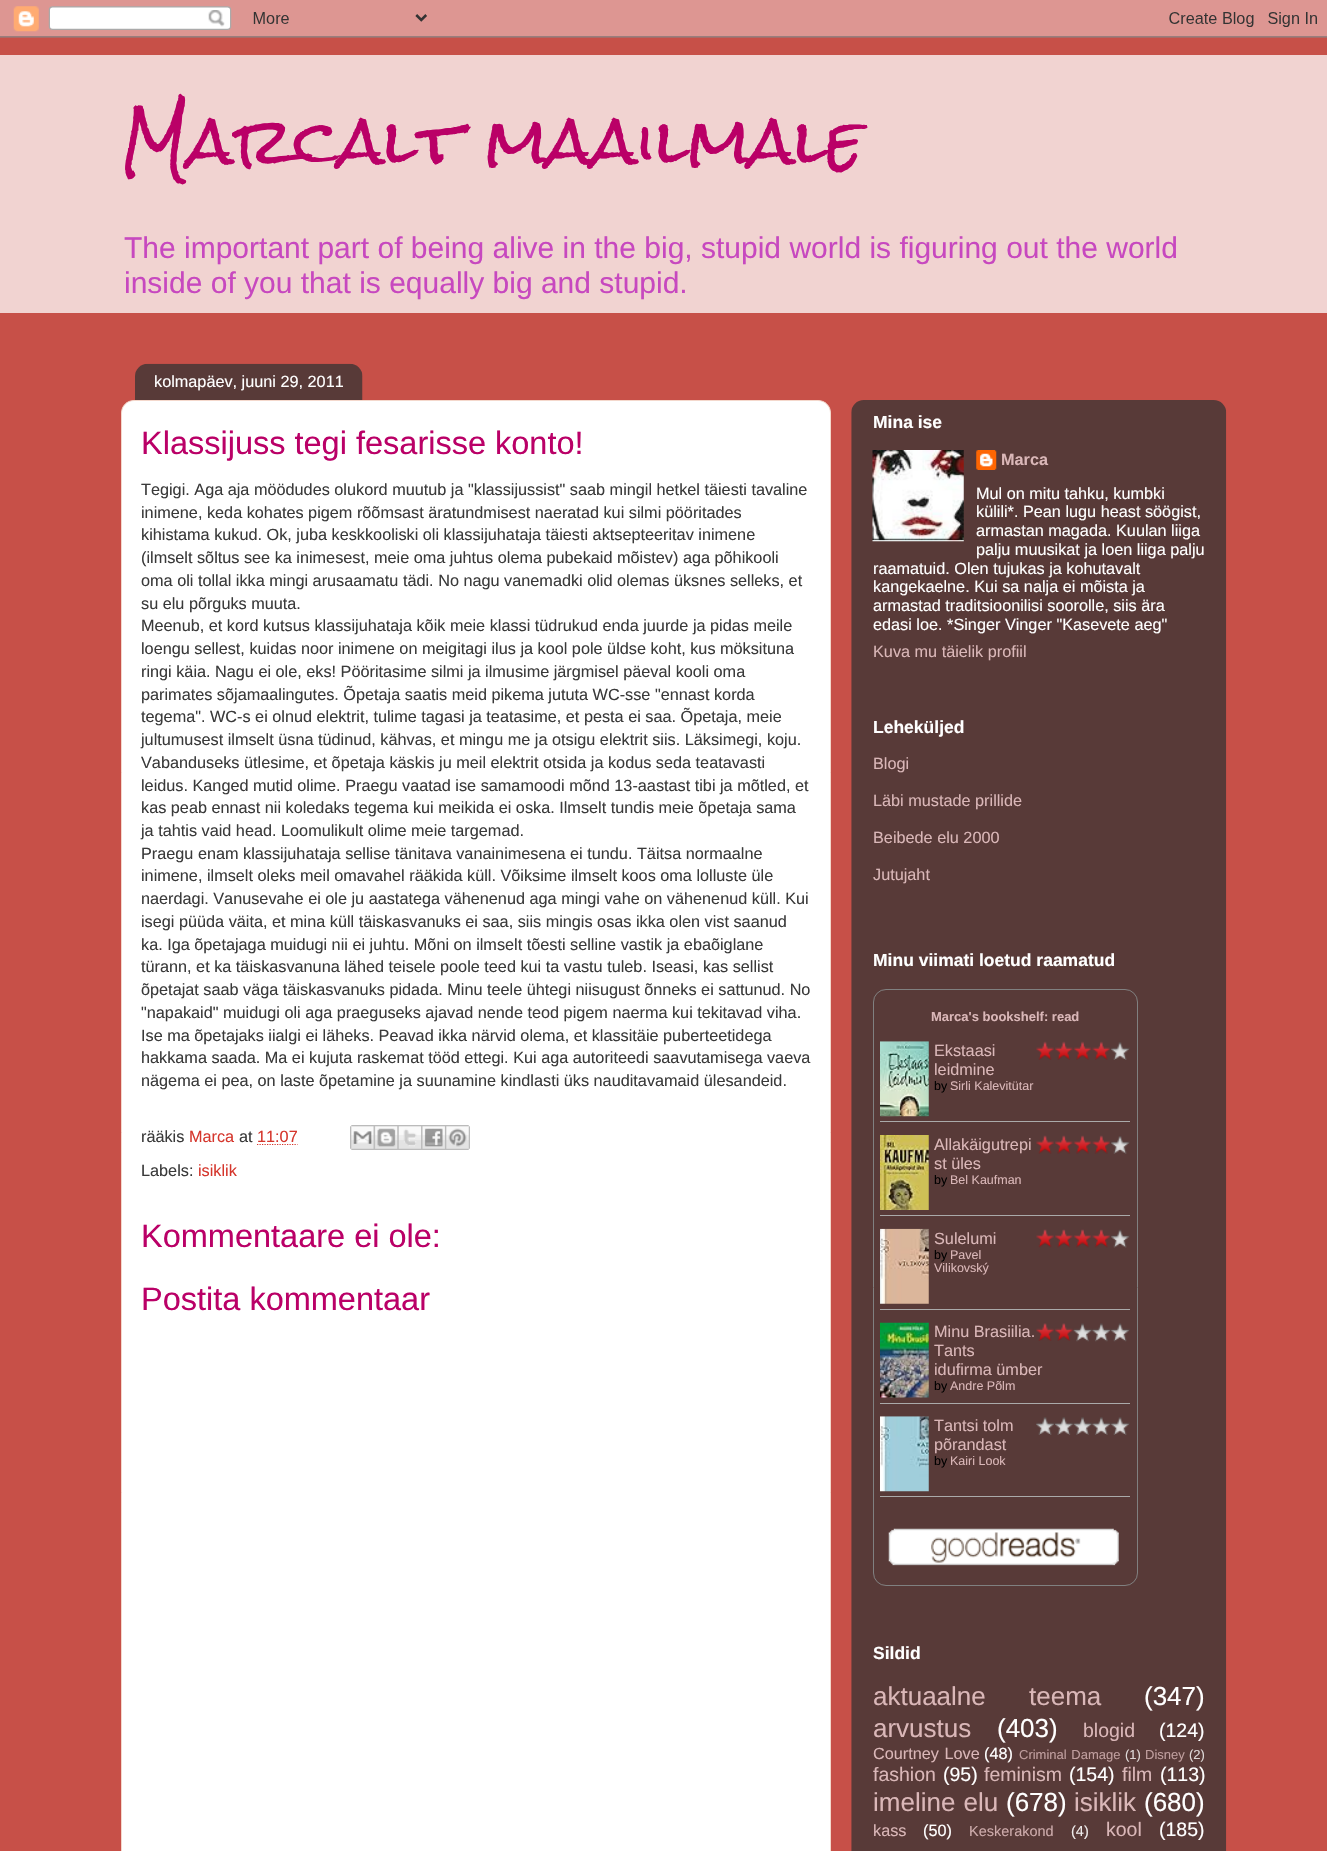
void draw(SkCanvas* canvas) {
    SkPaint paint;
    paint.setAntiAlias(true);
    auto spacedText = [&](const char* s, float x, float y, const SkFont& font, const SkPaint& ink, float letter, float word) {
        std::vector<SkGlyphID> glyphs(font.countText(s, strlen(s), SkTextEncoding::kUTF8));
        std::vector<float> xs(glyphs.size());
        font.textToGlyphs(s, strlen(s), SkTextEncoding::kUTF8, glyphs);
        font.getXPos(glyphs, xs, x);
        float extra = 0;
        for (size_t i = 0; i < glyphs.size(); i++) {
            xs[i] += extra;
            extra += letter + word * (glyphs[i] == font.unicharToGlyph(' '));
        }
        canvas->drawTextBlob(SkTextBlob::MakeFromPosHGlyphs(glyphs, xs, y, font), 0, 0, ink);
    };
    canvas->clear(0xFFC75048);
    canvas->drawImageRect(SkImages::DeferredFromEncodedData(SkData::MakeFromFileName("img1.png")), SkRect::MakeXYWH(0, 0, 1327, 38), SkSamplingOptions());
    paint.setColor(0xFFF1D3D1);
    canvas->drawRect(SkRect::MakeXYWH(0, 55, 1327, 258), paint);
    SkFont font1(fontMgr->matchFamilyStyle("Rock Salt", SkFontStyle::Normal()), 62.5f);
    font1.setSubpixel(true);
    paint.setColor(0xFFBA0067);
    canvas->drawString("Marcalt maailmale", 121, 166, font1, paint);
    SkFont font2(fontMgr->matchFamilyStyle("Liberation Sans", SkFontStyle::Normal()), 30);
    font2.setSubpixel(true);
    paint.setColor(0xFFC748BF);
    canvas->drawString("The important part of being alive in the big, stupid world is figuring out the world", 124, 258, font2, paint);
    canvas->drawString("inside of you that is equally big and stupid.", 124, 293, font2, paint);
    paint.setColor(0xFFFFFFFF);
    canvas->drawPath(SkPathBuilder().moveTo(134, 400.5f).lineTo(818, 400.5f).cubicTo(825, 400.5f, 830.5f, 406, 830.5f, 413).lineTo(830.5f, 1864.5f).lineTo(121.5f, 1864.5f).lineTo(121.5f, 413).cubicTo(121.5f, 406, 127, 400.5f, 134, 400.5f).close().detach(), paint);
    paint.setStyle(SkPaint::kStroke_Style);
    paint.setStrokeWidth(1);
    paint.setColor(0xFFF4D8CC);
    canvas->drawPath(SkPathBuilder().moveTo(134, 400.5f).lineTo(818, 400.5f).cubicTo(825, 400.5f, 830.5f, 406, 830.5f, 413).lineTo(830.5f, 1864.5f).lineTo(121.5f, 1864.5f).lineTo(121.5f, 413).cubicTo(121.5f, 406, 127, 400.5f, 134, 400.5f).close().detach(), paint);
    canvas->drawImageRect(SkImages::DeferredFromEncodedData(SkData::MakeFromFileName("img2.png")), SkRect::MakeXYWH(135, 363, 228, 37), SkSamplingOptions());
    SkFont font3(fontMgr->matchFamilyStyle("Liberation Sans", SkFontStyle::Normal()), 16.25f);
    font3.setSubpixel(true);
    paint.setStyle(SkPaint::kFill_Style);
    paint.setColor(0xFFFFFFFF);
    canvas->drawString("kolmapäev, juuni 29, 2011", 154, 387, font3, paint);
    SkFont font4(fontMgr->matchFamilyStyle("Liberation Sans", SkFontStyle::Normal()), 32.5f);
    font4.setSubpixel(true);
    paint.setColor(0xFFBA0067);
    canvas->drawString("Klassijuss tegi fesarisse konto!", 141, 454, font4, paint);
    paint.setColor(0xFF3A3A3A);
    canvas->drawString("Tegigi. Aga aja möödudes olukord muutub ja \"klassijussist\" saab mingil hetkel täiesti tavaline", 141, 495, font3, paint);
    canvas->drawString("inimene, keda kohates pigem rõõmsast äratundmisest naeratad kui silmi pööritades", 141, 518, font3, paint);
    canvas->drawString("kihistama kukud. Ok, juba keskkooliski oli klassijuhataja täiesti aktsepteeritav inimene", 141, 540, font3, paint);
    canvas->drawString("(ilmselt sõltus see ka inimesest, meie oma juhtus olema pubekaid mõistev) aga põhikooli", 141, 563, font3, paint);
    canvas->drawString("oma oli tollal ikka mingi arusaamatu tädi. No nagu vanemadki olid olemas üksnes selleks, et", 141, 586, font3, paint);
    canvas->drawString("su elu põrguks muuta.", 141, 609, font3, paint);
    canvas->drawString("Meenub, et kord kutsus klassijuhataja kõik meie klassi tüdrukud enda juurde ja pidas meile", 141, 631, font3, paint);
    canvas->drawString("loengu sellest, kuidas noor inimene on meigitagi ilus ja kool pole üldse koht, kus möksituna", 141, 654, font3, paint);
    canvas->drawString("ringi käia. Nagu ei ole, eks! Pööritasime silmi ja ilmusime järgmisel päeval kooli oma", 141, 677, font3, paint);
    canvas->drawString("parimates sõjamaalingutes. Õpetaja saatis meid pikema jututa WC-sse \"ennast korda", 141, 700, font3, paint);
    canvas->drawString("tegema\". WC-s ei olnud elektrit, tulime tagasi ja teatasime, et pesta ei saa. Õpetaja, meie", 141, 722, font3, paint);
    canvas->drawString("jultumusest ilmselt üsna tüdinud, kähvas, et mingu me ja otsigu elektrit siis. Läksimegi, koju.", 141, 745, font3, paint);
    canvas->drawString("Vabanduseks ütlesime, et õpetaja käskis ju meil elektrit otsida ja kodus seda teatavasti", 141, 768, font3, paint);
    canvas->drawString("leidus. Kanged mutid olime. Praegu vaatad ise samamoodi mõnd 13-aastast tibi ja mõtled, et", 141, 791, font3, paint);
    canvas->drawString("kas peab ennast nii koledaks tegema kui meikida ei oska. Ilmselt tundis meie õpetaja sama", 141, 813, font3, paint);
    canvas->drawString("ja tahtis vaid head. Loomulikult olime meie targemad.", 141, 836, font3, paint);
    canvas->drawString("Praegu enam klassijuhataja sellise tänitava vanainimesena ei tundu. Täitsa normaalne", 141, 859, font3, paint);
    canvas->drawString("inimene, ilmselt oleks meil omavahel rääkida küll. Võiksime ilmselt koos oma lolluste üle", 141, 881, font3, paint);
    canvas->drawString("naerdagi. Vanusevahe ei ole ju aastatega vähenenud aga mingi vahe on vähenenud küll. Kui", 141, 904, font3, paint);
    canvas->drawString("isegi püüda väita, et mina küll täiskasvanuks ei saa, siis mingis osas ikka olen vist saanud", 141, 927, font3, paint);
    canvas->drawString("ka. Iga õpetajaga muidugi nii ei juhtu. Mõni on ilmselt tõesti selline vastik ja ebaõiglane", 141, 950, font3, paint);
    canvas->drawString("türann, et ka täiskasvanuna lähed teisele poole teed kui ta vastu tuleb. Iseasi, kas sellist", 141, 972, font3, paint);
    canvas->drawString("õpetajat saab väga täiskasvanuks pidada. Minu teele ühtegi niisugust õnneks ei sattunud. No", 141, 995, font3, paint);
    canvas->drawString("\"napakaid\" muidugi oli aga praeguseks ajavad nende teod pigem naerma kui tekitavad viha.", 141, 1018, font3, paint);
    canvas->drawString("Ise ma õpetajaks iialgi ei läheks. Peavad ikka närvid olema, et klassitäie puberteetidega", 141, 1041, font3, paint);
    canvas->drawString("hakkama saada. Ma ei kujuta raskemat tööd ettegi. Kui aga autoriteedi saavutamisega vaeva", 141, 1063, font3, paint);
    canvas->drawString("nägema ei pea, on laste õpetamine ja suunamine kindlasti üks nauditavamaid ülesandeid.", 141, 1086, font3, paint);
    canvas->drawString("rääkis", 141, 1142, font3, paint);
    paint.setColor(0xFFD5362C);
    canvas->drawString("Marca", 189, 1142, font3, paint);
    paint.setColor(0xFF3A3A3A);
    canvas->drawString("at", 239, 1142, font3, paint);
    paint.setColor(0xFFD5362C);
    canvas->drawString("11:07", 257, 1142, font3, paint);
    paint.setStyle(SkPaint::kStroke_Style);
    paint.setStrokeWidth(1.2f);
    paint.setPathEffect(SkDashPathEffect::Make({{1.25f, 1.25f}}, 0));
    canvas->drawPath(SkPathBuilder().moveTo(257, 1144.5f).lineTo(297.5f, 1144.5f).detach(), paint);
    paint.setPathEffect(nullptr);
    canvas->drawImageRect(SkImages::DeferredFromEncodedData(SkData::MakeFromFileName("img3.png")), SkRect::MakeXYWH(350, 1125, 24, 25), SkSamplingOptions());
    canvas->drawImageRect(SkImages::DeferredFromEncodedData(SkData::MakeFromFileName("img4.png")), SkRect::MakeXYWH(373, 1125, 25, 25), SkSamplingOptions());
    canvas->drawImageRect(SkImages::DeferredFromEncodedData(SkData::MakeFromFileName("img5.png")), SkRect::MakeXYWH(397, 1125, 25, 25), SkSamplingOptions());
    canvas->drawImageRect(SkImages::DeferredFromEncodedData(SkData::MakeFromFileName("img6.png")), SkRect::MakeXYWH(421, 1125, 24, 25), SkSamplingOptions());
    canvas->drawImageRect(SkImages::DeferredFromEncodedData(SkData::MakeFromFileName("img7.png")), SkRect::MakeXYWH(445, 1125, 25, 25), SkSamplingOptions());
    paint.setStyle(SkPaint::kFill_Style);
    paint.setColor(0xFF3A3A3A);
    canvas->drawString("Labels:", 141, 1176, font3, paint);
    paint.setColor(0xFFD5362C);
    canvas->drawString("isiklik", 198, 1176, font3, paint);
    paint.setColor(0xFFBA0067);
    canvas->drawString("Kommentaare ei ole:", 141, 1247, font4, paint);
    canvas->drawString("Postita kommentaar", 141, 1310, font4, paint);
    canvas->drawImageRect(SkImages::DeferredFromEncodedData(SkData::MakeFromFileName("img8.png")), SkRect::MakeXYWH(851, 400, 376, 1451), SkSamplingOptions());
    SkFont font5(fontMgr->matchFamilyStyle("Liberation Sans", SkFontStyle::Bold()), 17.5f);
    font5.setSubpixel(true);
    paint.setColor(0xFFFFFFFF);
    canvas->drawString("Mina ise", 873, 428, font5, paint);
    canvas->drawImageRect(SkImages::DeferredFromEncodedData(SkData::MakeFromFileName("img9.png")), SkRect::MakeXYWH(872, 450, 92, 92), SkSamplingOptions());
    canvas->drawImageRect(SkImages::DeferredFromEncodedData(SkData::MakeFromFileName("img10.png")), SkRect::MakeXYWH(976, 450, 21, 20), SkSamplingOptions());
    SkFont font6(fontMgr->matchFamilyStyle("Liberation Sans", SkFontStyle::Bold()), 16.25f);
    font6.setSubpixel(true);
    paint.setColor(0xFFDAB7B8);
    canvas->drawString("Marca", 1001, 465, font6, paint);
    paint.setColor(0xFFFFFFFF);
    canvas->drawString("Mul on mitu tahku, kumbki", 976, 499, font3, paint);
    canvas->drawString("külili*. Pean lugu heast söögist,", 976, 517, font3, paint);
    canvas->drawString("armastan magada. Kuulan liiga", 976, 536, font3, paint);
    canvas->drawString("palju muusikat ja loen liiga palju", 976, 555, font3, paint);
    canvas->drawString("raamatuid. Olen tujukas ja kohutavalt", 873, 574, font3, paint);
    canvas->drawString("kangekaelne. Kui sa nalja ei mõista ja", 873, 592, font3, paint);
    canvas->drawString("armastad traditsioonilisi soorolle, siis ära", 873, 611, font3, paint);
    canvas->drawString("edasi loe. *Singer Vinger \"Kasevete aeg\"", 873, 630, font3, paint);
    paint.setColor(0xFFDAB7B8);
    canvas->drawString("Kuva mu täielik profiil", 873, 657, font3, paint);
    paint.setColor(0xFFFFFFFF);
    canvas->drawString("Leheküljed", 873, 733, font5, paint);
    paint.setColor(0xFFDAB7B8);
    canvas->drawString("Blogi", 873, 769, font3, paint);
    canvas->drawString("Läbi mustade prillide", 873, 806, font3, paint);
    canvas->drawString("Beibede elu 2000", 873, 843, font3, paint);
    canvas->drawString("Jutujaht", 873, 880, font3, paint);
    paint.setColor(0xFFFFFFFF);
    canvas->drawString("Minu viimati loetud raamatud", 873, 966, font5, paint);
    paint.setStyle(SkPaint::kStroke_Style);
    paint.setStrokeWidth(1);
    paint.setColor(0xFF808080);
    canvas->drawRoundRect(SkRect::MakeXYWH(873.5f, 989.5f, 264, 596), 12.5f, 12.5f, paint);
    SkFont font7(fontMgr->matchFamilyStyle("Liberation Sans", SkFontStyle::Bold()), 13);
    font7.setSubpixel(true);
    paint.setStyle(SkPaint::kFill_Style);
    paint.setColor(0xFFDAB7B8);
    canvas->drawString("Marca's bookshelf: read", 931, 1021, font7, paint);
    paint.setColor(0xFFAAAAAA);
    canvas->drawRect(SkRect::MakeXYWH(880, 1121, 250, 1), paint);
    canvas->drawImageRect(SkImages::DeferredFromEncodedData(SkData::MakeFromFileName("img11.png")), SkRect::MakeXYWH(880, 1041, 49, 76), SkSamplingOptions());
    paint.setColor(0xFFDAB7B8);
    canvas->drawString("Ekstaasi", 934, 1056, font3, paint);
    canvas->drawString("leidmine", 934, 1075, font3, paint);
    canvas->drawImageRect(SkImages::DeferredFromEncodedData(SkData::MakeFromFileName("img12.png")), SkRect::MakeXYWH(1036, 1041, 18, 19), SkSamplingOptions());
    canvas->drawImageRect(SkImages::DeferredFromEncodedData(SkData::MakeFromFileName("img13.png")), SkRect::MakeXYWH(1055, 1041, 18, 19), SkSamplingOptions());
    canvas->drawImageRect(SkImages::DeferredFromEncodedData(SkData::MakeFromFileName("img14.png")), SkRect::MakeXYWH(1073, 1041, 19, 19), SkSamplingOptions());
    canvas->drawImageRect(SkImages::DeferredFromEncodedData(SkData::MakeFromFileName("img15.png")), SkRect::MakeXYWH(1092, 1041, 18, 19), SkSamplingOptions());
    canvas->drawImageRect(SkImages::DeferredFromEncodedData(SkData::MakeFromFileName("img16.png")), SkRect::MakeXYWH(1111, 1042, 19, 18), SkSamplingOptions());
    SkFont font8(fontMgr->matchFamilyStyle("Liberation Sans", SkFontStyle::Normal()), 12.5f);
    font8.setSubpixel(true);
    paint.setColor(0xFF000000);
    canvas->drawString("by", 934, 1090, font8, paint);
    paint.setColor(0xFFDAB7B8);
    canvas->drawString("Sirli Kalevitütar", 950, 1090, font8, paint);
    paint.setColor(0xFFAAAAAA);
    canvas->drawRect(SkRect::MakeXYWH(880, 1215, 250, 1), paint);
    canvas->drawImageRect(SkImages::DeferredFromEncodedData(SkData::MakeFromFileName("img17.png")), SkRect::MakeXYWH(880, 1135, 49, 75), SkSamplingOptions());
    paint.setColor(0xFFDAB7B8);
    canvas->drawString("Allakäigutrepi", 934, 1150, font3, paint);
    canvas->drawString("st üles", 934, 1169, font3, paint);
    canvas->drawImageRect(SkImages::DeferredFromEncodedData(SkData::MakeFromFileName("img18.png")), SkRect::MakeXYWH(1036, 1135, 18, 19), SkSamplingOptions());
    canvas->drawImageRect(SkImages::DeferredFromEncodedData(SkData::MakeFromFileName("img19.png")), SkRect::MakeXYWH(1055, 1135, 18, 19), SkSamplingOptions());
    canvas->drawImageRect(SkImages::DeferredFromEncodedData(SkData::MakeFromFileName("img20.png")), SkRect::MakeXYWH(1073, 1135, 19, 19), SkSamplingOptions());
    canvas->drawImageRect(SkImages::DeferredFromEncodedData(SkData::MakeFromFileName("img21.png")), SkRect::MakeXYWH(1092, 1135, 18, 19), SkSamplingOptions());
    canvas->drawImageRect(SkImages::DeferredFromEncodedData(SkData::MakeFromFileName("img22.png")), SkRect::MakeXYWH(1111, 1136, 19, 18), SkSamplingOptions());
    paint.setColor(0xFF000000);
    canvas->drawString("by", 934, 1184, font8, paint);
    paint.setColor(0xFFDAB7B8);
    canvas->drawString("Bel Kaufman", 950, 1184, font8, paint);
    paint.setColor(0xFFAAAAAA);
    canvas->drawRect(SkRect::MakeXYWH(880, 1309, 250, 1), paint);
    canvas->drawImageRect(SkImages::DeferredFromEncodedData(SkData::MakeFromFileName("img23.png")), SkRect::MakeXYWH(880, 1228, 49, 76), SkSamplingOptions());
    paint.setColor(0xFFDAB7B8);
    canvas->drawString("Sulelumi", 934, 1244, font3, paint);
    canvas->drawImageRect(SkImages::DeferredFromEncodedData(SkData::MakeFromFileName("img24.png")), SkRect::MakeXYWH(1036, 1229, 18, 19), SkSamplingOptions());
    canvas->drawImageRect(SkImages::DeferredFromEncodedData(SkData::MakeFromFileName("img25.png")), SkRect::MakeXYWH(1055, 1229, 18, 19), SkSamplingOptions());
    canvas->drawImageRect(SkImages::DeferredFromEncodedData(SkData::MakeFromFileName("img26.png")), SkRect::MakeXYWH(1073, 1229, 19, 19), SkSamplingOptions());
    canvas->drawImageRect(SkImages::DeferredFromEncodedData(SkData::MakeFromFileName("img27.png")), SkRect::MakeXYWH(1092, 1229, 18, 19), SkSamplingOptions());
    canvas->drawImageRect(SkImages::DeferredFromEncodedData(SkData::MakeFromFileName("img28.png")), SkRect::MakeXYWH(1111, 1229, 19, 19), SkSamplingOptions());
    paint.setColor(0xFF000000);
    canvas->drawString("by", 934, 1259, font8, paint);
    paint.setColor(0xFFDAB7B8);
    canvas->drawString("Pavel", 950, 1259, font8, paint);
    canvas->drawString("Vilikovský", 934, 1272, font8, paint);
    paint.setColor(0xFFAAAAAA);
    canvas->drawRect(SkRect::MakeXYWH(880, 1403, 250, 1), paint);
    canvas->drawImageRect(SkImages::DeferredFromEncodedData(SkData::MakeFromFileName("img29.png")), SkRect::MakeXYWH(880, 1322, 49, 76), SkSamplingOptions());
    paint.setColor(0xFFDAB7B8);
    canvas->drawString("Minu Brasiilia.", 934, 1337, font3, paint);
    canvas->drawString("Tants", 934, 1356, font3, paint);
    canvas->drawString("idufirma ümber", 934, 1375, font3, paint);
    canvas->drawImageRect(SkImages::DeferredFromEncodedData(SkData::MakeFromFileName("img30.png")), SkRect::MakeXYWH(1036, 1323, 18, 18), SkSamplingOptions());
    canvas->drawImageRect(SkImages::DeferredFromEncodedData(SkData::MakeFromFileName("img31.png")), SkRect::MakeXYWH(1055, 1323, 18, 18), SkSamplingOptions());
    canvas->drawImageRect(SkImages::DeferredFromEncodedData(SkData::MakeFromFileName("img32.png")), SkRect::MakeXYWH(1073, 1323, 19, 19), SkSamplingOptions());
    canvas->drawImageRect(SkImages::DeferredFromEncodedData(SkData::MakeFromFileName("img33.png")), SkRect::MakeXYWH(1092, 1323, 19, 19), SkSamplingOptions());
    canvas->drawImageRect(SkImages::DeferredFromEncodedData(SkData::MakeFromFileName("img34.png")), SkRect::MakeXYWH(1111, 1323, 19, 19), SkSamplingOptions());
    paint.setColor(0xFF000000);
    canvas->drawString("by", 934, 1390, font8, paint);
    paint.setColor(0xFFDAB7B8);
    canvas->drawString("Andre Põlm", 950, 1390, font8, paint);
    paint.setColor(0xFFAAAAAA);
    canvas->drawRect(SkRect::MakeXYWH(880, 1496, 250, 1), paint);
    canvas->drawImageRect(SkImages::DeferredFromEncodedData(SkData::MakeFromFileName("img35.png")), SkRect::MakeXYWH(880, 1416, 49, 76), SkSamplingOptions());
    paint.setColor(0xFFDAB7B8);
    canvas->drawString("Tantsi tolm", 934, 1431, font3, paint);
    canvas->drawString("põrandast", 934, 1450, font3, paint);
    canvas->drawImageRect(SkImages::DeferredFromEncodedData(SkData::MakeFromFileName("img16.png")), SkRect::MakeXYWH(1036, 1417, 19, 18), SkSamplingOptions());
    canvas->drawImageRect(SkImages::DeferredFromEncodedData(SkData::MakeFromFileName("img36.png")), SkRect::MakeXYWH(1055, 1417, 19, 18), SkSamplingOptions());
    canvas->drawImageRect(SkImages::DeferredFromEncodedData(SkData::MakeFromFileName("img37.png")), SkRect::MakeXYWH(1073, 1417, 19, 18), SkSamplingOptions());
    canvas->drawImageRect(SkImages::DeferredFromEncodedData(SkData::MakeFromFileName("img38.png")), SkRect::MakeXYWH(1092, 1417, 19, 18), SkSamplingOptions());
    canvas->drawImageRect(SkImages::DeferredFromEncodedData(SkData::MakeFromFileName("img16.png")), SkRect::MakeXYWH(1111, 1417, 19, 18), SkSamplingOptions());
    paint.setColor(0xFF000000);
    canvas->drawString("by", 934, 1465, font8, paint);
    paint.setColor(0xFFDAB7B8);
    canvas->drawString("Kairi Look", 950, 1465, font8, paint);
    canvas->drawImageRect(SkImages::DeferredFromEncodedData(SkData::MakeFromFileName("img39.png")), SkRect::MakeXYWH(888, 1528, 231, 38), SkSamplingOptions());
    paint.setColor(0xFFFFFFFF);
    canvas->drawString("Sildid", 873, 1659, font5, paint);
    SkFont font9(fontMgr->matchFamilyStyle("Liberation Sans", SkFontStyle::Normal()), 26);
    font9.setSubpixel(true);
    paint.setColor(0xFFDAB7B8);
    spacedText("aktuaalne teema", 873, 1705, font9, paint, 0, 36);
    paint.setColor(0xFFFFFFFF);
    canvas->drawString("(347)", 1144, 1705, font9, paint);
    paint.setColor(0xFFDAB7B8);
    canvas->drawString("arvustus", 873, 1737, font9, paint);
    paint.setColor(0xFFFFFFFF);
    canvas->drawString("(403)", 997, 1737, font9, paint);
    SkFont font10(fontMgr->matchFamilyStyle("Liberation Sans", SkFontStyle::Normal()), 19.5f);
    font10.setSubpixel(true);
    paint.setColor(0xFFDAB7B8);
    canvas->drawString("blogid", 1083, 1737, font10, paint);
    paint.setColor(0xFFFFFFFF);
    canvas->drawString("(124)", 1159, 1737, font10, paint);
    paint.setColor(0xFFDAB7B8);
    spacedText("Courtney Love", 873, 1759, font3, paint, 0, 1);
    paint.setColor(0xFFFFFFFF);
    canvas->drawString("(48)", 984, 1759, font3, paint);
    SkFont font11(fontMgr->matchFamilyStyle("Liberation Sans", SkFontStyle::Normal()), 13);
    font11.setSubpixel(true);
    paint.setColor(0xFFC09E9E);
    spacedText("Criminal Damage", 1019, 1759, font11, paint, 0, 1);
    paint.setColor(0xFFDED8D7);
    canvas->drawString("(1)", 1125, 1759, font11, paint);
    paint.setColor(0xFFC09E9E);
    canvas->drawString("Disney", 1145, 1759, font11, paint);
    paint.setColor(0xFFDED8D7);
    canvas->drawString("(2)", 1189, 1759, font11, paint);
    paint.setColor(0xFFDAB7B8);
    canvas->drawString("fashion", 873, 1781, font10, paint);
    paint.setColor(0xFFFFFFFF);
    canvas->drawString("(95)", 943, 1781, font10, paint);
    paint.setColor(0xFFDAB7B8);
    canvas->drawString("feminism", 984, 1781, font10, paint);
    paint.setColor(0xFFFFFFFF);
    canvas->drawString("(154)", 1069, 1781, font10, paint);
    paint.setColor(0xFFDAB7B8);
    canvas->drawString("film", 1122, 1781, font10, paint);
    paint.setColor(0xFFFFFFFF);
    canvas->drawString("(113)", 1160, 1781, font10, paint);
    paint.setColor(0xFFDAB7B8);
    spacedText("imeline elu", 873, 1811, font9, paint, 0, 1);
    paint.setColor(0xFFFFFFFF);
    canvas->drawString("(678)", 1006, 1811, font9, paint);
    paint.setColor(0xFFDAB7B8);
    canvas->drawString("isiklik", 1074, 1811, font9, paint);
    paint.setColor(0xFFFFFFFF);
    canvas->drawString("(680)", 1144, 1811, font9, paint);
    paint.setColor(0xFFDAB7B8);
    canvas->drawString("kass", 873, 1836, font3, paint);
    paint.setColor(0xFFFFFFFF);
    canvas->drawString("(50)", 923, 1836, font3, paint);
    SkFont font12(fontMgr->matchFamilyStyle("Liberation Sans", SkFontStyle::Normal()), 14.5f);
    font12.setSubpixel(true);
    paint.setColor(0xFFCDABAB);
    canvas->drawString("Keskerakond", 969, 1836, font12, paint);
    paint.setColor(0xFFEEEBEB);
    canvas->drawString("(4)", 1071, 1836, font12, paint);
    paint.setColor(0xFFDAB7B8);
    canvas->drawString("kool", 1106, 1836, font10, paint);
    paint.setColor(0xFFFFFFFF);
    canvas->drawString("(185)", 1159, 1836, font10, paint);
}
